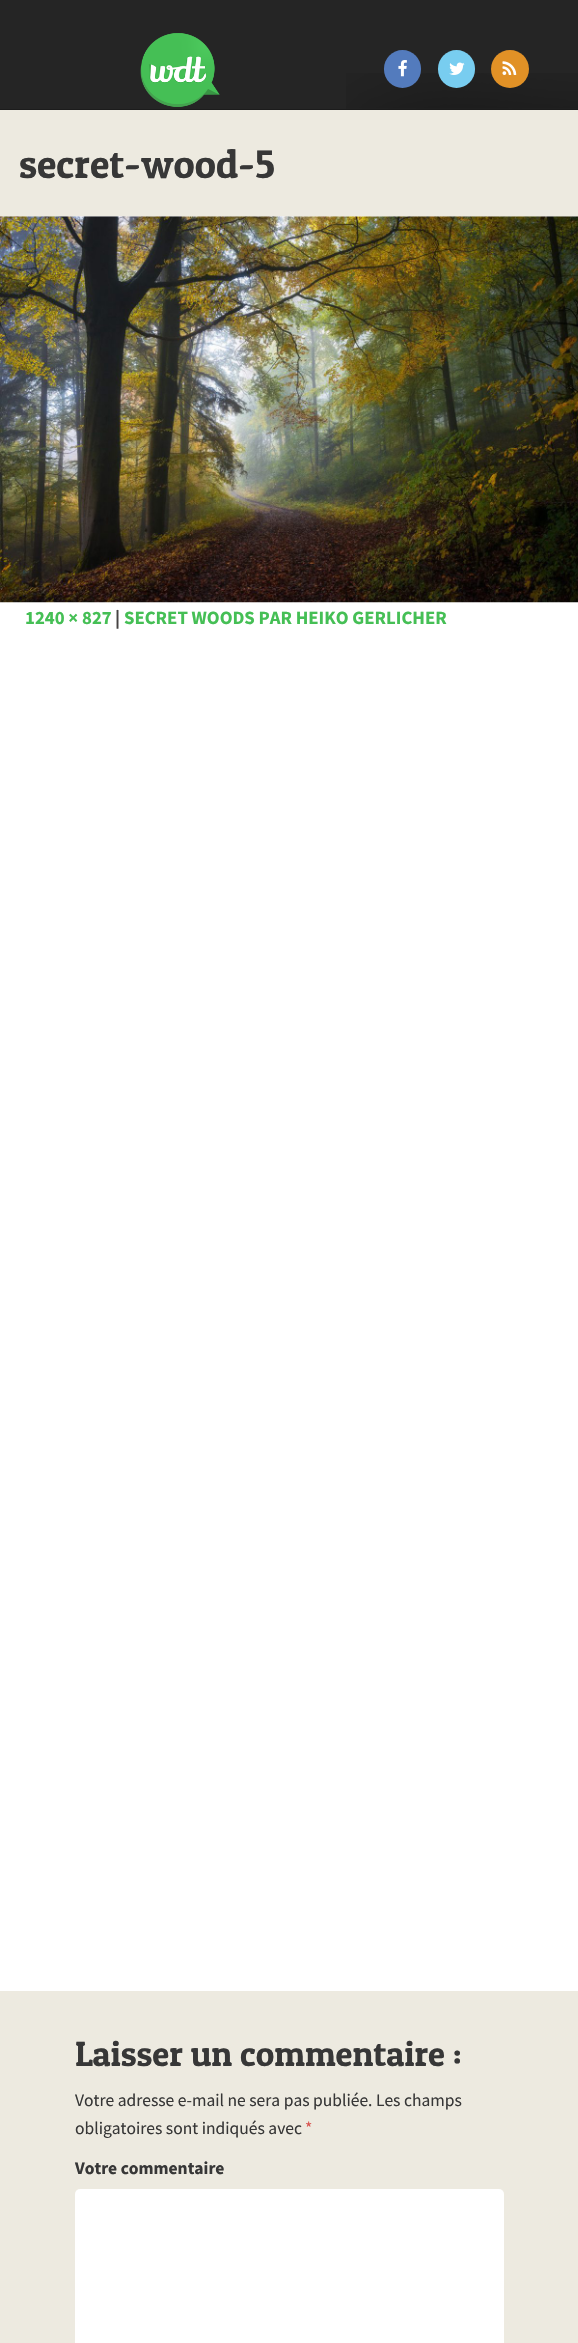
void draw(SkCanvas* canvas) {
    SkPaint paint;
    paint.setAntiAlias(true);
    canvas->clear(0xFF252525);
    canvas->drawImageRect(SkImages::DeferredFromEncodedData(SkData::MakeFromFileName("img1.png")), SkRect::MakeXYWH(346, 73, 232, 36), SkSamplingOptions());
    canvas->drawImageRect(SkImages::DeferredFromEncodedData(SkData::MakeFromFileName("img2.png")), SkRect::MakeXYWH(140, 33, 80, 74), SkSamplingOptions());
    paint.setColor(0xFF537BBD);
    canvas->drawRoundRect(SkRect::MakeXYWH(384, 50, 37, 38), 18.5f, 18.5f, paint);
    canvas->drawImageRect(SkImages::DeferredFromEncodedData(SkData::MakeFromFileName("img3.png")), SkRect::MakeXYWH(398, 60, 9, 17), SkSamplingOptions());
    paint.setColor(0xFF78CDF0);
    canvas->drawRoundRect(SkRect::MakeXYWH(438, 50, 37, 38), 18.5f, 18.5f, paint);
    canvas->drawImageRect(SkImages::DeferredFromEncodedData(SkData::MakeFromFileName("img4.png")), SkRect::MakeXYWH(449, 62, 16, 13), SkSamplingOptions());
    paint.setColor(0xFFE19126);
    canvas->drawCircle(510, 69, 19, paint);
    canvas->drawImageRect(SkImages::DeferredFromEncodedData(SkData::MakeFromFileName("img5.png")), SkRect::MakeXYWH(502, 61, 15, 14), SkSamplingOptions());
    paint.setColor(0xFF1C1C1C);
    canvas->drawRect(SkRect::MakeXYWH(0, 109, 578, 1), paint);
    paint.setColor(0xFFEDEAE0);
    canvas->drawRect(SkRect::MakeXYWH(0, 110, 578, 106), paint);
    SkFont font1(fontMgr->matchFamilyStyle("Patua One", SkFontStyle::Normal()), 40);
    font1.setSubpixel(true);
    paint.setColor(0xFF373737);
    canvas->drawString("secret-wood-5", 19, 178, font1, paint);
    paint.setColor(0xFFFFFFFF);
    canvas->drawRect(SkRect::MakeXYWH(0, 216, 578, 1775), paint);
    canvas->drawImageRect(SkImages::DeferredFromEncodedData(SkData::MakeFromFileName("img6.png")), SkRect::MakeXYWH(0, 216, 578, 387), SkSamplingOptions());
    SkFont font2(fontMgr->matchFamilyStyle("Source Sans Pro", SkFontStyle::Bold()), 18.75f);
    font2.setSubpixel(true);
    paint.setColor(0xFF45BF55);
    canvas->drawString("1240 × 827", 25, 624, font2, paint);
    paint.setColor(0xFF464343);
    canvas->drawString("|", 115, 624, font2, paint);
    paint.setColor(0xFF45BF55);
    canvas->drawString("SECRET WOODS PAR HEIKO GERLICHER", 124, 624, font2, paint);
    paint.setColor(0xFFEDEAE0);
    canvas->drawRect(SkRect::MakeXYWH(0, 1991, 578, 352), paint);
    SkFont font3(fontMgr->matchFamilyStyle("Patua One", SkFontStyle::Normal()), 35);
    font3.setSubpixel(true);
    paint.setColor(0xFF373737);
    canvas->drawString("Laisser un commentaire :", 75, 2066, font3, paint);
    SkFont font4(fontMgr->matchFamilyStyle("Source Sans Pro", SkFontStyle::Normal()), 17.5f);
    font4.setSubpixel(true);
    canvas->drawString("Votre adresse e-mail ne sera pas publiée. Les champs", 75, 2106, font4, paint);
    canvas->drawString("obligatoires sont indiqués avec", 75, 2134, font4, paint);
    paint.setColor(0xFFD9534F);
    canvas->drawString("*", 305, 2134, font4, paint);
    SkFont font5(fontMgr->matchFamilyStyle("Source Sans Pro", SkFontStyle::Bold()), 17.5f);
    font5.setSubpixel(true);
    paint.setColor(0xFF373737);
    canvas->drawString("Votre commentaire", 75, 2174, font5, paint);
    paint.setColor(0xFFFFFFFF);
    canvas->drawRoundRect(SkRect::MakeXYWH(75, 2189, 429, 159), 5, 5, paint);
}
